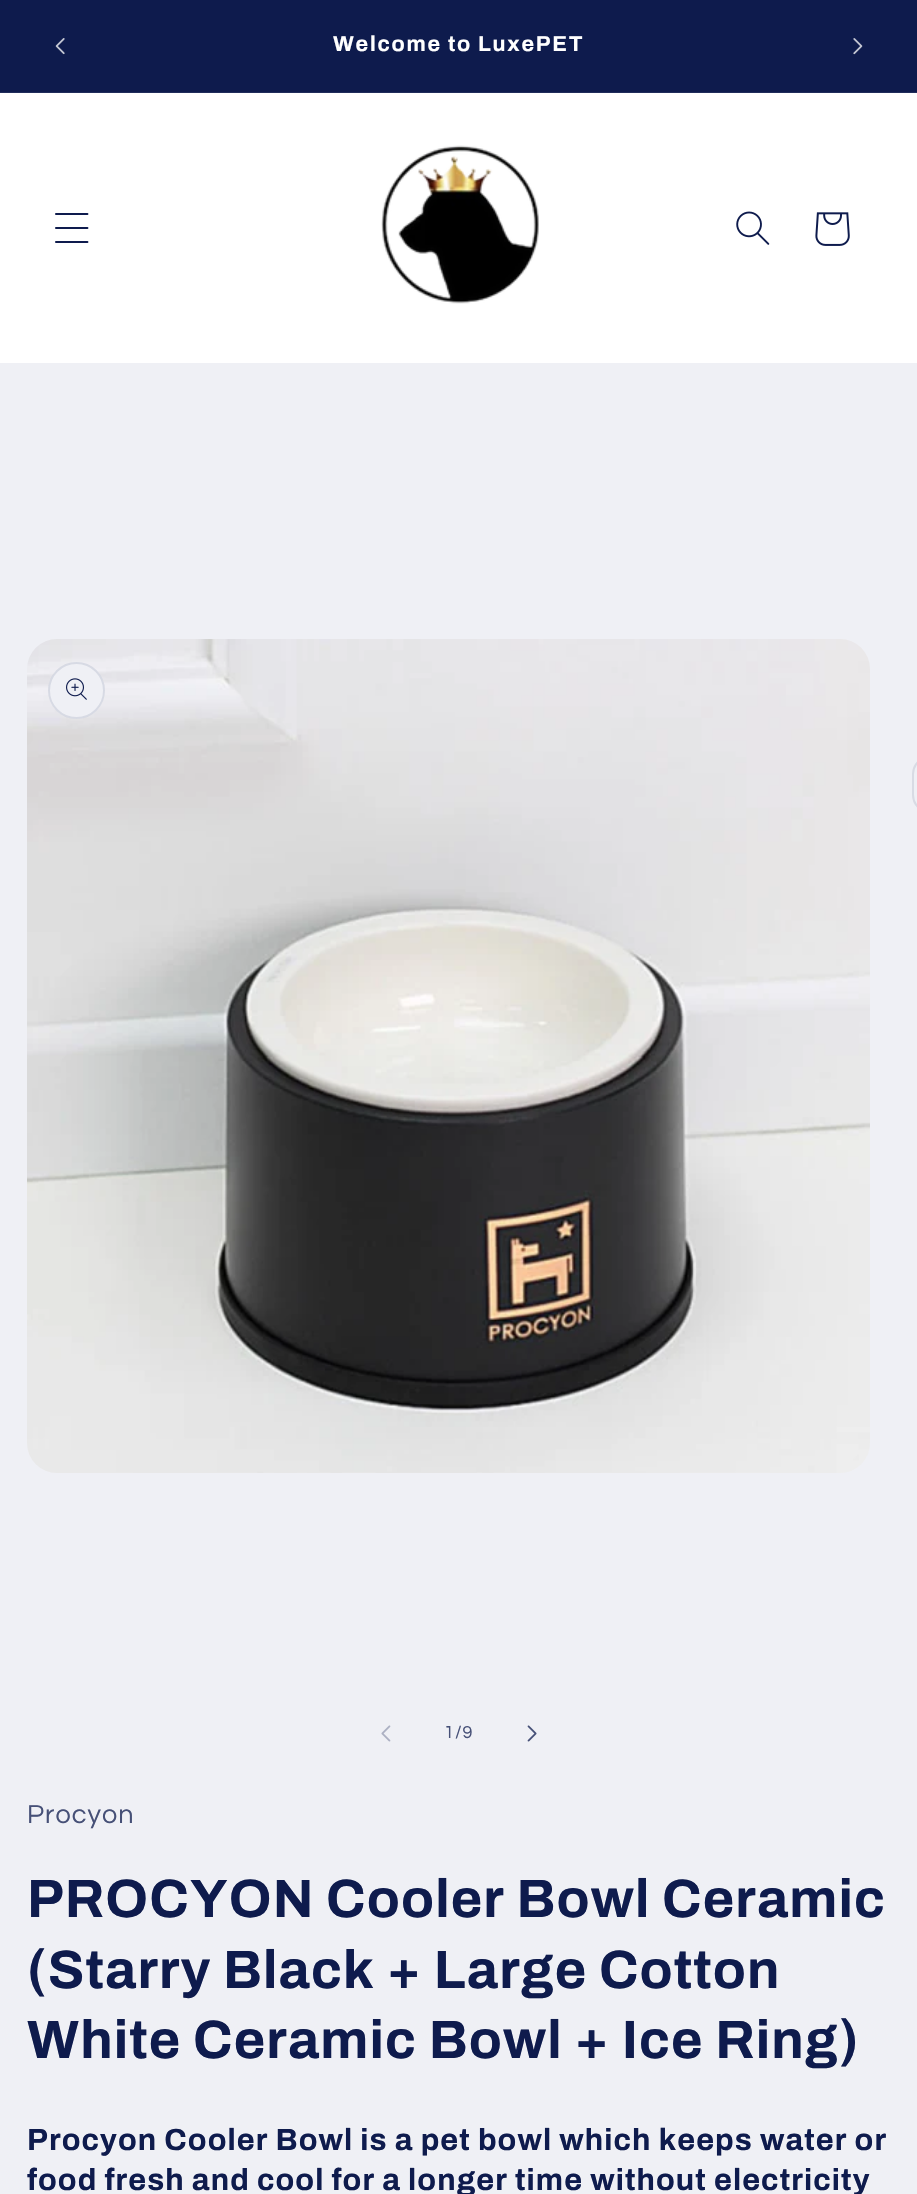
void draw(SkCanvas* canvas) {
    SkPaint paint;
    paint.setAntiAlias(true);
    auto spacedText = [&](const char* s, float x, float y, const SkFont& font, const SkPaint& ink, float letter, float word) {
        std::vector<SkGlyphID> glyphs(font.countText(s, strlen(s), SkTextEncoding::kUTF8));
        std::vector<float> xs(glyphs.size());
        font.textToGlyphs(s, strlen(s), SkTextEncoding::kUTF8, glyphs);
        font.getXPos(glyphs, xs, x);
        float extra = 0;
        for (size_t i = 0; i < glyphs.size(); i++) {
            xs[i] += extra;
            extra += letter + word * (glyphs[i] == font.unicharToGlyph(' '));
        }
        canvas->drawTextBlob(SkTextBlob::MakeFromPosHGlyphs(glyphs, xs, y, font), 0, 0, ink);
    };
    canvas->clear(0xFFEFF0F5);
    paint.setColor(0xFF0E1B4D);
    canvas->drawRect(SkRect::MakeXYWH(0, 0, 917, 92), paint);
    paint.setColor(0xFF212D5B);
    canvas->drawRect(SkRect::MakeXYWH(0, 92, 917, 1), paint);
    canvas->drawImageRect(SkImages::DeferredFromEncodedData(SkData::MakeFromFileName("img1.png")), SkRect::MakeXYWH(55, 38, 10, 17), SkSamplingOptions());
    SkFont font1(fontMgr->matchFamilyStyle("Archivo", SkFontStyle::Bold()), 21.6f);
    font1.setSubpixel(true);
    paint.setColor(0xFFFFFFFF);
    spacedText("Welcome to LuxePET", 333, 51, font1, paint, 1.75f, 0);
    canvas->drawImageRect(SkImages::DeferredFromEncodedData(SkData::MakeFromFileName("img2.png")), SkRect::MakeXYWH(853, 38, 10, 17), SkSamplingOptions());
    canvas->drawRect(SkRect::MakeXYWH(0, 93, 917, 270), paint);
    canvas->drawImageRect(SkImages::DeferredFromEncodedData(SkData::MakeFromFileName("img3.png")), SkRect::MakeXYWH(55, 213, 34, 30), SkSamplingOptions());
    canvas->drawImageRect(SkImages::DeferredFromEncodedData(SkData::MakeFromFileName("img4.png")), SkRect::MakeXYWH(381, 145, 158, 159), SkSamplingOptions());
    canvas->drawImageRect(SkImages::DeferredFromEncodedData(SkData::MakeFromFileName("img5.png")), SkRect::MakeXYWH(736, 211, 34, 34), SkSamplingOptions());
    canvas->drawImageRect(SkImages::DeferredFromEncodedData(SkData::MakeFromFileName("img6.png")), SkRect::MakeXYWH(815, 212, 35, 34), SkSamplingOptions());
    canvas->drawImageRect(SkImages::DeferredFromEncodedData(SkData::MakeFromFileName("img7.png")), SkRect::MakeXYWH(27, 639, 843, 834), SkSamplingOptions());
    paint.setColor(0xFFEFF0F5);
    canvas->drawCircle(76.5f, 690.5f, 28.5f, paint);
    paint.setStyle(SkPaint::kStroke_Style);
    paint.setStrokeWidth(2);
    paint.setColor(0x1A0E1B4D);
    canvas->drawCircle(76.5f, 690.5f, 27.5f, paint);
    canvas->drawImageRect(SkImages::DeferredFromEncodedData(SkData::MakeFromFileName("img8.png")), SkRect::MakeXYWH(66, 678, 21, 22), SkSamplingOptions());
    paint.setColor(0xFFD8DBE4);
    canvas->drawRoundRect(SkRect::MakeXYWH(913, 757, 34, 55), 27.5f, 27.5f, paint);
    canvas->drawImageRect(SkImages::DeferredFromEncodedData(SkData::MakeFromFileName("img9.png")), SkRect::MakeXYWH(381, 1725, 10, 17), SkSamplingOptions());
    SkFont font2(fontMgr->matchFamilyStyle("Questrial", SkFontStyle::Normal()), 18);
    font2.setSubpixel(true);
    paint.setStyle(SkPaint::kFill_Style);
    paint.setColor(0xFF465077);
    spacedText("1/9", 444, 1738, font2, paint, 1, 0);
    canvas->drawImageRect(SkImages::DeferredFromEncodedData(SkData::MakeFromFileName("img10.png")), SkRect::MakeXYWH(527, 1725, 10, 17), SkSamplingOptions());
    SkFont font3(fontMgr->matchFamilyStyle("Questrial", SkFontStyle::Normal()), 27);
    font3.setSubpixel(true);
    spacedText("Procyon", 27, 1823, font3, paint, 1.08f, 0);
    SkFont font4(fontMgr->matchFamilyStyle("Archivo", SkFontStyle::Bold()), 54);
    font4.setSubpixel(true);
    paint.setColor(0xFF0E1B4D);
    spacedText("PROCYON Cooler Bowl Ceramic", 27, 1917, font4, paint, 1.08f, 0);
    spacedText("(Starry Black + Large Cotton", 27, 1988, font4, paint, 1.08f, 0);
    spacedText("White Ceramic Bowl + Ice Ring)", 27, 2058, font4, paint, 1.08f, 0);
    SkFont font5(fontMgr->matchFamilyStyle("Archivo", SkFontStyle::Bold()), 30.6f);
    font5.setSubpixel(true);
    spacedText("Procyon Cooler Bowl is a pet bowl which keeps water or", 27, 2150, font5, paint, 1.08f, 0);
    spacedText("food fresh and cool for a longer time without electricity", 27, 2190, font5, paint, 1.08f, 0);
}
